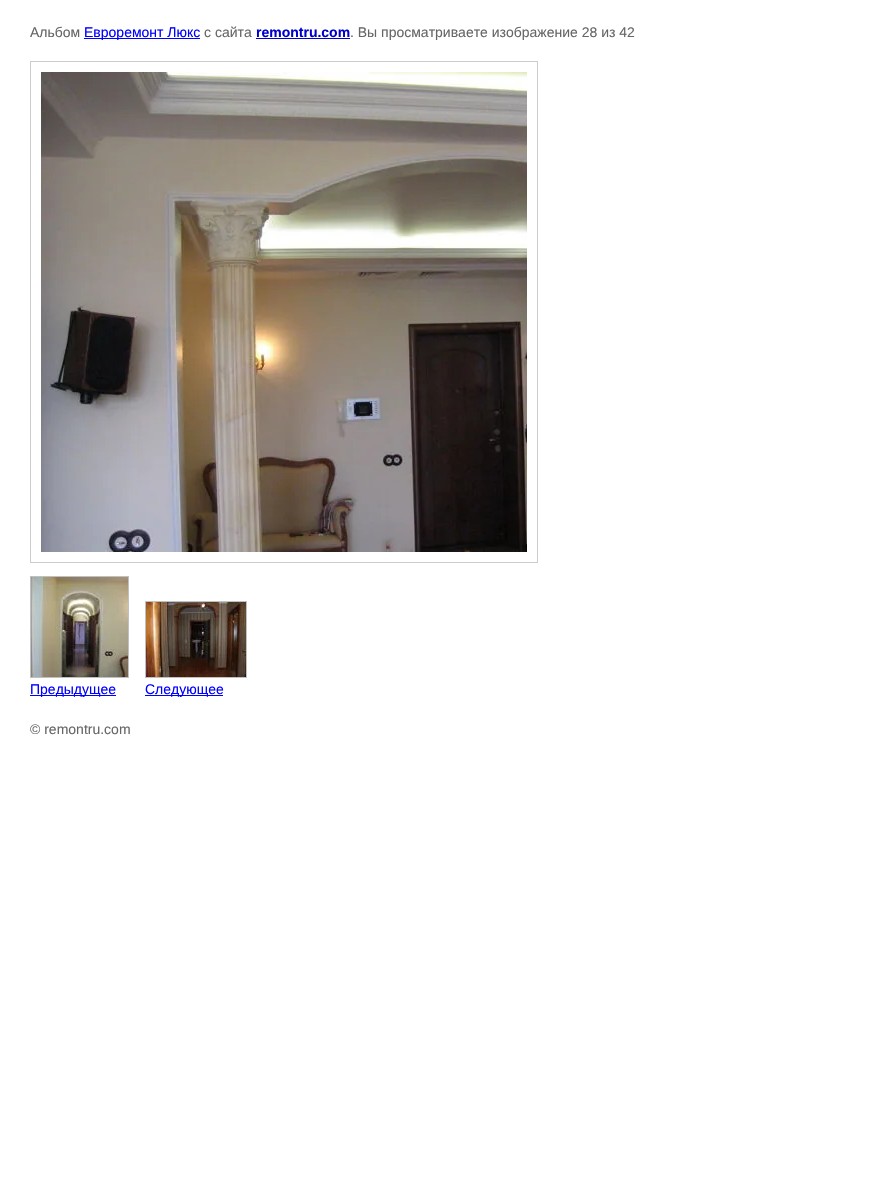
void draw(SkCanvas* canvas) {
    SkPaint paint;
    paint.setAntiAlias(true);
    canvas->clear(0xFFFFFFFF);
    SkFont font1(fontMgr->matchFamilyStyle("Liberation Sans", SkFontStyle::Normal()), 14);
    font1.setSubpixel(true);
    paint.setColor(0xFF666666);
    canvas->drawString("Альбом", 30, 37, font1, paint);
    paint.setColor(0xFF0000FF);
    canvas->drawRect(SkRect::MakeXYWH(84, 38, 116, 1), paint);
    canvas->drawString("Евроремонт Люкс", 84, 37, font1, paint);
    paint.setColor(0xFF666666);
    canvas->drawString("с сайта", 204, 37, font1, paint);
    SkFont font2(fontMgr->matchFamilyStyle("Liberation Sans", SkFontStyle::Bold()), 14);
    font2.setSubpixel(true);
    paint.setColor(0xFF0000CC);
    canvas->drawString("remontru.com", 256, 37, font2, paint);
    canvas->drawRect(SkRect::MakeXYWH(256, 38, 94, 1), paint);
    paint.setColor(0xFF666666);
    canvas->drawString(". Вы просматриваете изображение 28 из 42", 350, 37, font1, paint);
    paint.setStyle(SkPaint::kStroke_Style);
    paint.setStrokeWidth(1);
    paint.setColor(0xFFCCCCCC);
    canvas->drawRect(SkRect::MakeXYWH(30.5f, 61.5f, 507, 501), paint);
    canvas->drawImageRect(SkImages::DeferredFromEncodedData(SkData::MakeFromFileName("img1.png")), SkRect::MakeXYWH(41, 72, 486, 480), SkSamplingOptions());
    paint.setColor(0xFFC0C0C0);
    canvas->drawRect(SkRect::MakeXYWH(30.5f, 576.5f, 98, 101), paint);
    canvas->drawImageRect(SkImages::DeferredFromEncodedData(SkData::MakeFromFileName("img2.png")), SkRect::MakeXYWH(31, 577, 97, 100), SkSamplingOptions());
    paint.setStyle(SkPaint::kFill_Style);
    paint.setColor(0xFF0000FF);
    canvas->drawRect(SkRect::MakeXYWH(30, 695, 86, 1), paint);
    canvas->drawString("Предыдущее", 30, 694, font1, paint);
    paint.setStyle(SkPaint::kStroke_Style);
    paint.setColor(0xFFC0C0C0);
    canvas->drawRect(SkRect::MakeXYWH(145.5f, 601.5f, 101, 76), paint);
    canvas->drawImageRect(SkImages::DeferredFromEncodedData(SkData::MakeFromFileName("img3.png")), SkRect::MakeXYWH(146, 602, 100, 75), SkSamplingOptions());
    paint.setStyle(SkPaint::kFill_Style);
    paint.setColor(0xFF0000FF);
    canvas->drawRect(SkRect::MakeXYWH(145, 695, 78, 1), paint);
    canvas->drawString("Следующее", 145, 694, font1, paint);
    paint.setColor(0xFF666666);
    canvas->drawString("© remontru.com", 30, 734, font1, paint);
}
